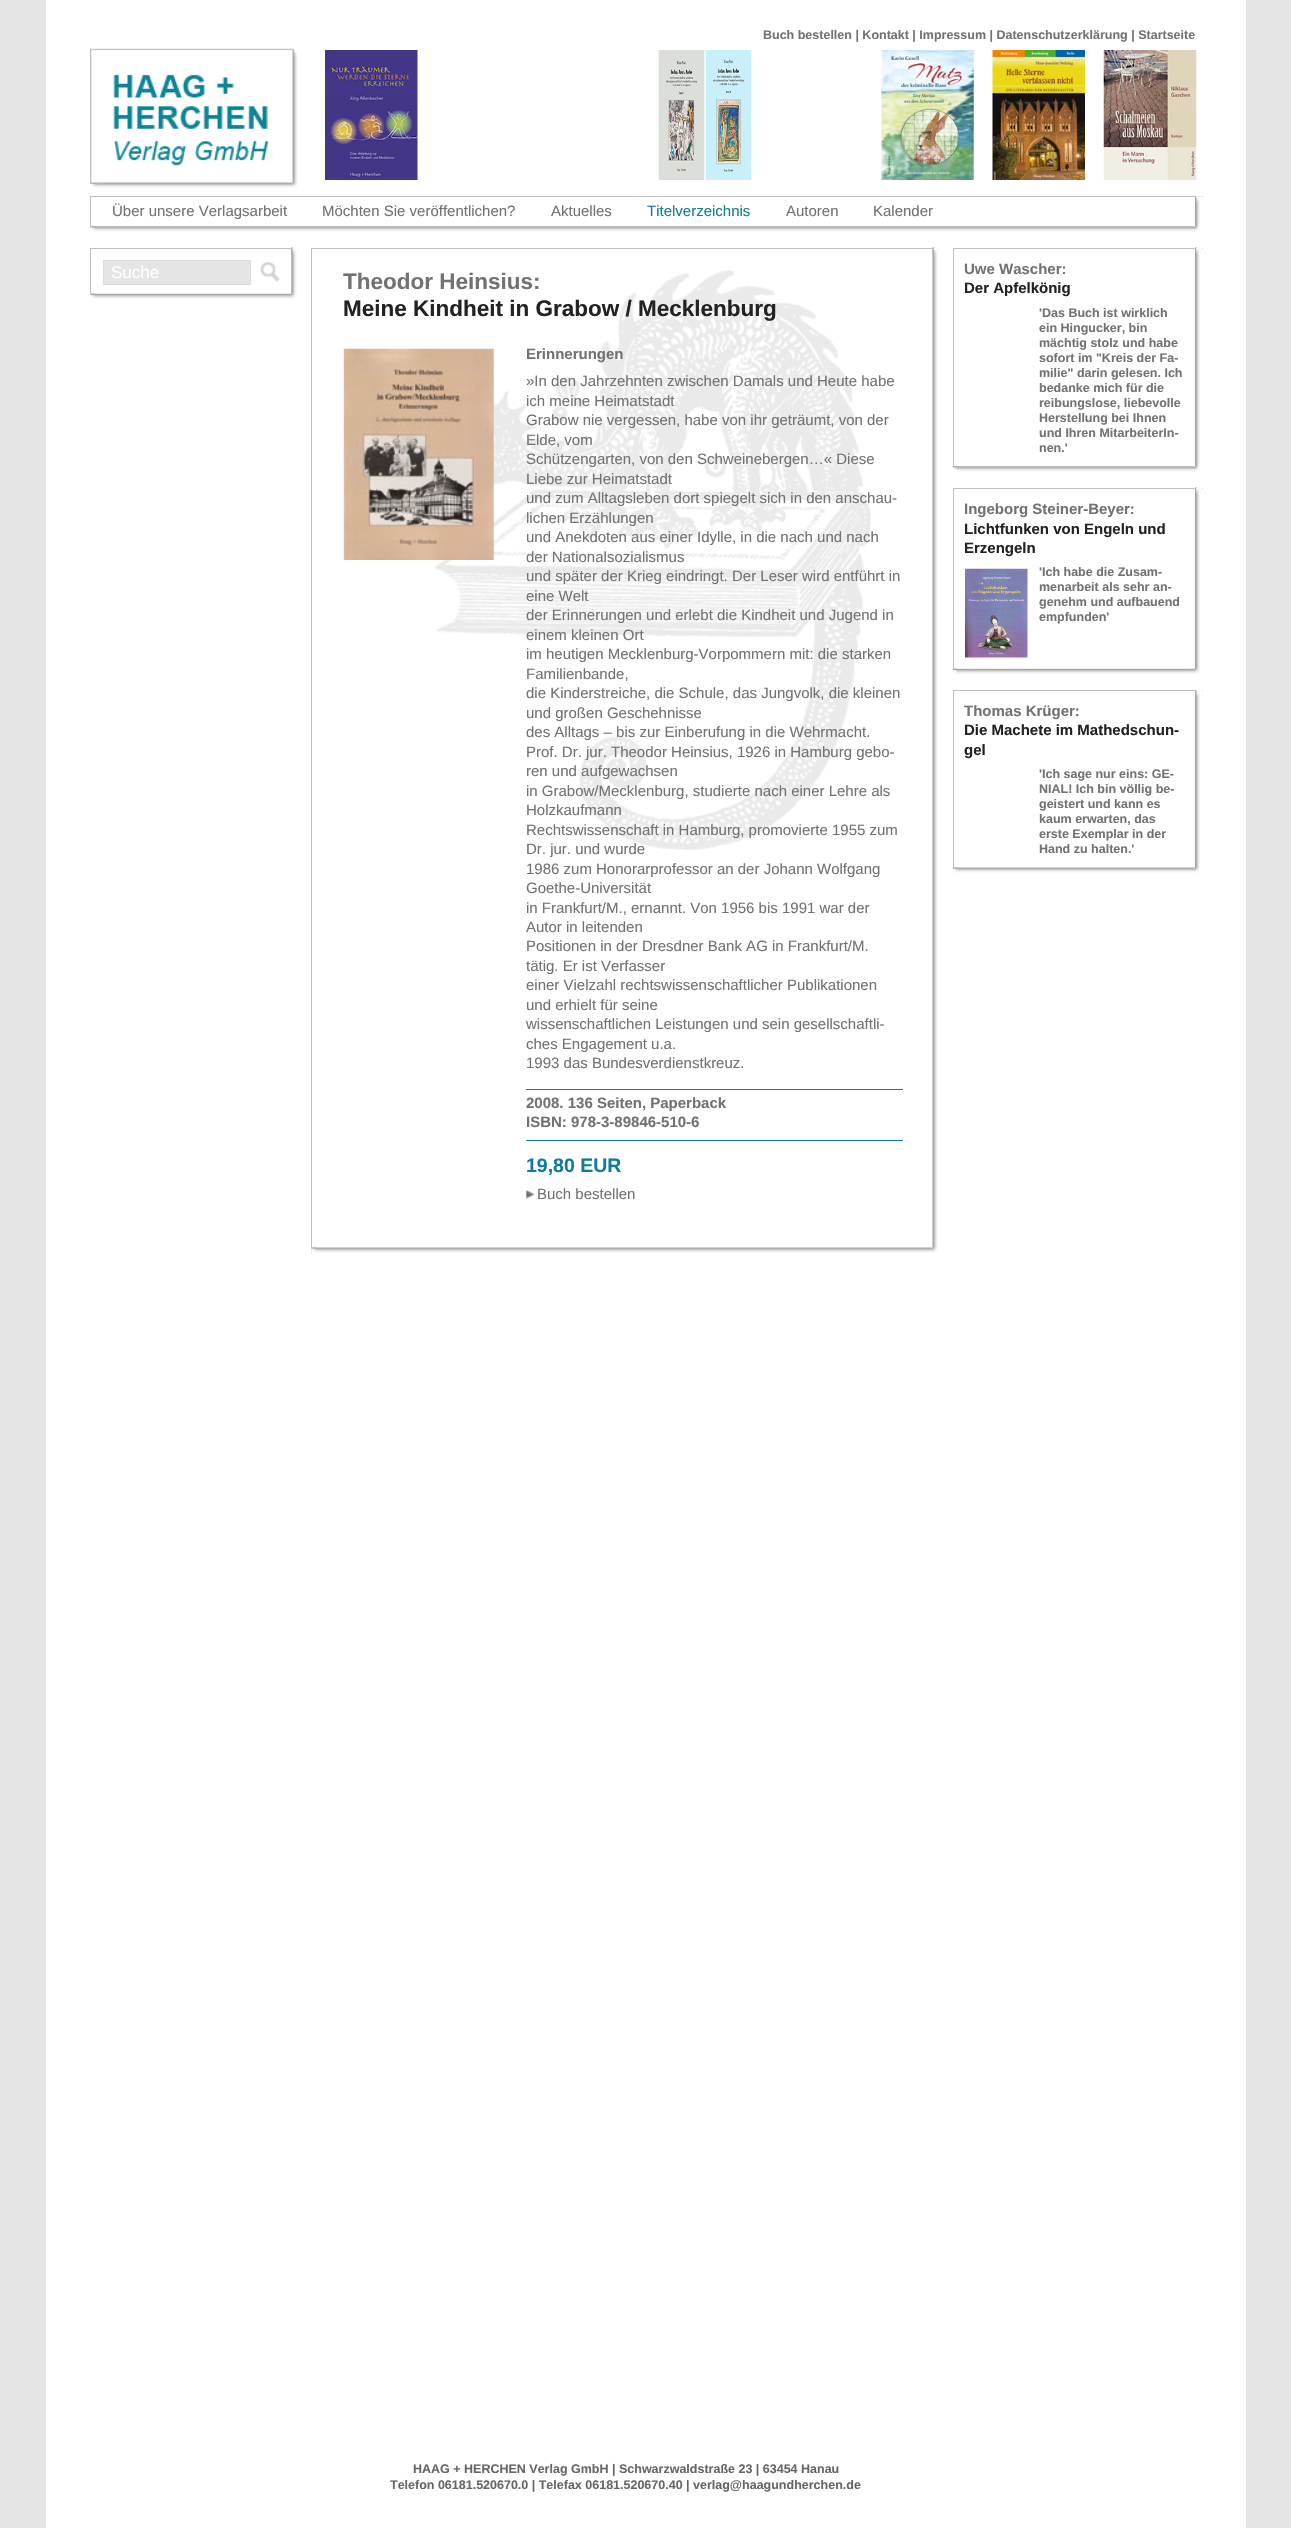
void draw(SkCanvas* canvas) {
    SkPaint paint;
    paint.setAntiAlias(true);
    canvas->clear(0xFFE5E5E5);
    paint.setColor(0xFFFFFFFF);
    canvas->drawRect(SkRect::MakeXYWH(46, 0, 1200, 2528), paint);
    SkFont font1(fontMgr->matchFamilyStyle("Liberation Sans", SkFontStyle::Bold()), 12.5f);
    font1.setSubpixel(true);
    paint.setColor(0xFF727272);
    canvas->drawString("Buch bestellen | Kontakt | Impressum | Datenschutzerklärung | Startseite", 763, 39, font1, paint);
    canvas->drawImageRect(SkImages::DeferredFromEncodedData(SkData::MakeFromFileName("img1.png")), SkRect::MakeXYWH(90, 48, 208, 140), SkSamplingOptions());
    canvas->drawImageRect(SkImages::DeferredFromEncodedData(SkData::MakeFromFileName("img2.png")), SkRect::MakeXYWH(325, 50, 93, 130), SkSamplingOptions());
    canvas->drawImageRect(SkImages::DeferredFromEncodedData(SkData::MakeFromFileName("img3.png")), SkRect::MakeXYWH(658, 50, 94, 130), SkSamplingOptions());
    canvas->drawImageRect(SkImages::DeferredFromEncodedData(SkData::MakeFromFileName("img4.png")), SkRect::MakeXYWH(881, 50, 93, 130), SkSamplingOptions());
    canvas->drawImageRect(SkImages::DeferredFromEncodedData(SkData::MakeFromFileName("img5.png")), SkRect::MakeXYWH(992, 50, 93, 130), SkSamplingOptions());
    canvas->drawImageRect(SkImages::DeferredFromEncodedData(SkData::MakeFromFileName("img6.png")), SkRect::MakeXYWH(1103, 50, 94, 130), SkSamplingOptions());
    canvas->drawImageRect(SkImages::DeferredFromEncodedData(SkData::MakeFromFileName("img7.png")), SkRect::MakeXYWH(1195, 202, 5, 25), SkSamplingOptions());
    paint.setColor(0xFFBFBFBF);
    canvas->drawRect(SkRect::MakeXYWH(90, 196, 1113, 1), paint);
    canvas->drawRect(SkRect::MakeXYWH(90, 196, 1, 37), paint);
    canvas->drawImageRect(SkImages::DeferredFromEncodedData(SkData::MakeFromFileName("img8.png")), SkRect::MakeXYWH(1195, 196, 8, 7), SkSamplingOptions());
    SkFont font2(fontMgr->matchFamilyStyle("Liberation Sans", SkFontStyle::Normal()), 15);
    font2.setSubpixel(true);
    paint.setColor(0xFF727272);
    canvas->drawString("Über unsere Verlagsarbeit", 112, 216, font2, paint);
    canvas->drawString("Möchten Sie veröffentlichen?", 322, 216, font2, paint);
    canvas->drawString("Aktuelles", 551, 216, font2, paint);
    paint.setColor(0xFF0F7D96);
    canvas->drawString("Titelverzeichnis", 647, 216, font2, paint);
    paint.setColor(0xFF727272);
    canvas->drawString("Autoren", 786, 216, font2, paint);
    canvas->drawString("Kalender", 873, 216, font2, paint);
    canvas->drawImageRect(SkImages::DeferredFromEncodedData(SkData::MakeFromFileName("img9.png")), SkRect::MakeXYWH(91, 226, 1109, 7), SkSamplingOptions());
    canvas->drawImageRect(SkImages::DeferredFromEncodedData(SkData::MakeFromFileName("img10.png")), SkRect::MakeXYWH(90, 226, 5, 7), SkSamplingOptions());
    canvas->drawImageRect(SkImages::DeferredFromEncodedData(SkData::MakeFromFileName("img11.png")), SkRect::MakeXYWH(291, 247, 6, 47), SkSamplingOptions());
    paint.setColor(0xFFBFBFBF);
    canvas->drawRect(SkRect::MakeXYWH(90, 248, 209, 1), paint);
    canvas->drawRect(SkRect::MakeXYWH(90, 248, 1, 52), paint);
    canvas->drawImageRect(SkImages::DeferredFromEncodedData(SkData::MakeFromFileName("img12.png")), SkRect::MakeXYWH(291, 247, 8, 7), SkSamplingOptions());
    paint.setColor(0xFFE5E5E5);
    canvas->drawRect(SkRect::MakeXYWH(103.5f, 260.5f, 147, 24), paint);
    paint.setStyle(SkPaint::kStroke_Style);
    paint.setStrokeWidth(1);
    paint.setColor(0xFFDCDCDC);
    canvas->drawRect(SkRect::MakeXYWH(103.5f, 260.5f, 147, 24), paint);
    SkFont font3(fontMgr->matchFamilyStyle("Liberation Sans", SkFontStyle::Normal()), 17);
    font3.setSubpixel(true);
    paint.setStyle(SkPaint::kFill_Style);
    paint.setColor(0xFFFFFFFF);
    canvas->drawString("Suche", 111, 278, font3, paint);
    canvas->drawImageRect(SkImages::DeferredFromEncodedData(SkData::MakeFromFileName("img13.png")), SkRect::MakeXYWH(260, 261, 20, 21), SkSamplingOptions());
    canvas->drawImageRect(SkImages::DeferredFromEncodedData(SkData::MakeFromFileName("img14.png")), SkRect::MakeXYWH(91, 293, 206, 7), SkSamplingOptions());
    canvas->drawImageRect(SkImages::DeferredFromEncodedData(SkData::MakeFromFileName("img15.png")), SkRect::MakeXYWH(90, 293, 5, 7), SkSamplingOptions());
    canvas->drawImageRect(SkImages::DeferredFromEncodedData(SkData::MakeFromFileName("img16.png")), SkRect::MakeXYWH(932, 247, 6, 1001), SkSamplingOptions());
    paint.setColor(0xFFBFBFBF);
    canvas->drawRect(SkRect::MakeXYWH(311, 248, 629, 1), paint);
    canvas->drawRect(SkRect::MakeXYWH(311, 248, 1, 1006), paint);
    canvas->drawImageRect(SkImages::DeferredFromEncodedData(SkData::MakeFromFileName("img17.png")), SkRect::MakeXYWH(932, 247, 8, 7), SkSamplingOptions());
    canvas->drawImageRect(SkImages::DeferredFromEncodedData(SkData::MakeFromFileName("img18.png")), SkRect::MakeXYWH(386, 270, 485, 580), SkSamplingOptions());
    SkFont font4(fontMgr->matchFamilyStyle("Liberation Sans", SkFontStyle::Bold()), 22.5f);
    font4.setSubpixel(true);
    paint.setColor(0xFF727272);
    canvas->drawString("Theodor Heinsius:", 343, 289, font4, paint);
    paint.setColor(0xFF222222);
    canvas->drawString("Meine Kindheit in Grabow / Mecklenburg", 343, 316, font4, paint);
    canvas->drawImageRect(SkImages::DeferredFromEncodedData(SkData::MakeFromFileName("img19.png")), SkRect::MakeXYWH(343, 348, 151, 212), SkSamplingOptions());
    SkFont font5(fontMgr->matchFamilyStyle("Liberation Sans", SkFontStyle::Bold()), 15);
    font5.setSubpixel(true);
    paint.setColor(0xFF727272);
    canvas->drawString("Erinnerungen", 526, 359, font5, paint);
    canvas->drawString("»In den Jahrzehnten zwischen Damals und Heute habe", 526, 386, font2, paint);
    canvas->drawString("ich meine Heimatstadt", 526, 406, font2, paint);
    canvas->drawString("Grabow nie vergessen, habe von ihr geträumt, von der", 526, 425, font2, paint);
    canvas->drawString("Elde, vom", 526, 445, font2, paint);
    canvas->drawString("Schützengarten, von den Schweinebergen…« Diese", 526, 464, font2, paint);
    canvas->drawString("Liebe zur Heimatstadt", 526, 484, font2, paint);
    canvas->drawString("und zum Alltagsleben dort spiegelt sich in den anschau-", 526, 503, font2, paint);
    canvas->drawString("lichen Erzählungen", 526, 523, font2, paint);
    canvas->drawString("und Anekdoten aus einer Idylle, in die nach und nach", 526, 542, font2, paint);
    canvas->drawString("der Nationalsozialismus", 526, 562, font2, paint);
    canvas->drawString("und später der Krieg eindringt. Der Leser wird entführt in", 526, 581, font2, paint);
    canvas->drawString("eine Welt", 526, 601, font2, paint);
    canvas->drawString("der Erinnerungen und erlebt die Kindheit und Jugend in", 526, 620, font2, paint);
    canvas->drawString("einem kleinen Ort", 526, 640, font2, paint);
    canvas->drawString("im heutigen Mecklenburg-Vorpommern mit: die starken", 526, 659, font2, paint);
    canvas->drawString("Familienbande,", 526, 679, font2, paint);
    canvas->drawString("die Kinderstreiche, die Schule, das Jungvolk, die kleinen", 526, 698, font2, paint);
    canvas->drawString("und großen Geschehnisse", 526, 718, font2, paint);
    canvas->drawString("des Alltags – bis zur Einberufung in die Wehrmacht.", 526, 737, font2, paint);
    canvas->drawString("Prof. Dr. jur. Theodor Heinsius, 1926 in Hamburg gebo-", 526, 757, font2, paint);
    canvas->drawString("ren und aufgewachsen", 526, 776, font2, paint);
    canvas->drawString("in Grabow/Mecklenburg, studierte nach einer Lehre als", 526, 796, font2, paint);
    canvas->drawString("Holzkaufmann", 526, 815, font2, paint);
    canvas->drawString("Rechtswissenschaft in Hamburg, promovierte 1955 zum", 526, 835, font2, paint);
    canvas->drawString("Dr. jur. und wurde", 526, 854, font2, paint);
    canvas->drawString("1986 zum Honorarprofessor an der Johann Wolfgang", 526, 874, font2, paint);
    canvas->drawString("Goethe-Universität", 526, 893, font2, paint);
    canvas->drawString("in Frankfurt/M., ernannt. Von 1956 bis 1991 war der", 526, 913, font2, paint);
    canvas->drawString("Autor in leitenden", 526, 932, font2, paint);
    canvas->drawString("Positionen in der Dresdner Bank AG in Frankfurt/M.", 526, 951, font2, paint);
    canvas->drawString("tätig. Er ist Verfasser", 526, 971, font2, paint);
    canvas->drawString("einer Vielzahl rechtswissenschaftlicher Publikationen", 526, 990, font2, paint);
    canvas->drawString("und erhielt für seine", 526, 1010, font2, paint);
    canvas->drawString("wissenschaftlichen Leistungen und sein gesellschaftli-", 526, 1029, font2, paint);
    canvas->drawString("ches Engagement u.a.", 526, 1049, font2, paint);
    canvas->drawString("1993 das Bundesverdienstkreuz.", 526, 1068, font2, paint);
    paint.setColor(0xFF0F7D96);
    canvas->drawRect(SkRect::MakeXYWH(526, 1089, 377, 1), paint);
    canvas->drawRect(SkRect::MakeXYWH(526, 1140, 377, 1), paint);
    paint.setColor(0xFF727272);
    canvas->drawString("2008. 136 Seiten, Paperback", 526, 1108, font5, paint);
    canvas->drawString("ISBN: 978-3-89846-510-6", 526, 1127, font5, paint);
    SkFont font6(fontMgr->matchFamilyStyle("Liberation Sans", SkFontStyle::Bold()), 19.5f);
    font6.setSubpixel(true);
    paint.setColor(0xFF0F7D96);
    canvas->drawString("19,80 EUR", 526, 1172, font6, paint);
    canvas->drawImageRect(SkImages::DeferredFromEncodedData(SkData::MakeFromFileName("img20.png")), SkRect::MakeXYWH(526, 1190, 8, 9), SkSamplingOptions());
    paint.setColor(0xFF727272);
    canvas->drawString("Buch bestellen", 537, 1199, font2, paint);
    canvas->drawImageRect(SkImages::DeferredFromEncodedData(SkData::MakeFromFileName("img21.png")), SkRect::MakeXYWH(312, 1247, 626, 7), SkSamplingOptions());
    canvas->drawImageRect(SkImages::DeferredFromEncodedData(SkData::MakeFromFileName("img22.png")), SkRect::MakeXYWH(311, 1247, 6, 7), SkSamplingOptions());
    canvas->drawImageRect(SkImages::DeferredFromEncodedData(SkData::MakeFromFileName("img23.png")), SkRect::MakeXYWH(1195, 247, 5, 220), SkSamplingOptions());
    paint.setColor(0xFFBFBFBF);
    canvas->drawRect(SkRect::MakeXYWH(953, 248, 250, 1), paint);
    canvas->drawRect(SkRect::MakeXYWH(953, 248, 1, 225), paint);
    canvas->drawImageRect(SkImages::DeferredFromEncodedData(SkData::MakeFromFileName("img24.png")), SkRect::MakeXYWH(1195, 247, 8, 7), SkSamplingOptions());
    paint.setColor(0xFF727272);
    canvas->drawString("Uwe Wascher:", 964, 274, font5, paint);
    paint.setColor(0xFF222222);
    canvas->drawString("Der Apfelkönig", 964, 293, font5, paint);
    paint.setColor(0xFF727272);
    canvas->drawString("'Das Buch ist wirklich", 1039, 317, font1, paint);
    canvas->drawString("ein Hingucker, bin", 1039, 332, font1, paint);
    canvas->drawString("mächtig stolz und habe", 1039, 347, font1, paint);
    canvas->drawString("sofort im \"Kreis der Fa-", 1039, 362, font1, paint);
    canvas->drawString("milie\" darin gelesen. Ich", 1039, 377, font1, paint);
    canvas->drawString("bedanke mich für die", 1039, 392, font1, paint);
    canvas->drawString("reibungslose, liebevolle", 1039, 407, font1, paint);
    canvas->drawString("Herstellung bei Ihnen", 1039, 422, font1, paint);
    canvas->drawString("und Ihren MitarbeiterIn-", 1039, 437, font1, paint);
    canvas->drawString("nen.'", 1039, 452, font1, paint);
    canvas->drawImageRect(SkImages::DeferredFromEncodedData(SkData::MakeFromFileName("img25.png")), SkRect::MakeXYWH(953, 466, 247, 7), SkSamplingOptions());
    canvas->drawImageRect(SkImages::DeferredFromEncodedData(SkData::MakeFromFileName("img26.png")), SkRect::MakeXYWH(952, 466, 6, 7), SkSamplingOptions());
    canvas->drawImageRect(SkImages::DeferredFromEncodedData(SkData::MakeFromFileName("img27.png")), SkRect::MakeXYWH(1195, 487, 5, 182), SkSamplingOptions());
    paint.setColor(0xFFBFBFBF);
    canvas->drawRect(SkRect::MakeXYWH(953, 488, 250, 1), paint);
    canvas->drawRect(SkRect::MakeXYWH(953, 488, 1, 187), paint);
    canvas->drawImageRect(SkImages::DeferredFromEncodedData(SkData::MakeFromFileName("img24.png")), SkRect::MakeXYWH(1195, 487, 8, 7), SkSamplingOptions());
    paint.setColor(0xFF727272);
    canvas->drawString("Ingeborg Steiner-Beyer:", 964, 514, font5, paint);
    paint.setColor(0xFF222222);
    canvas->drawString("Lichtfunken von Engeln und", 964, 534, font5, paint);
    canvas->drawString("Erzengeln", 964, 553, font5, paint);
    canvas->drawImageRect(SkImages::DeferredFromEncodedData(SkData::MakeFromFileName("img28.png")), SkRect::MakeXYWH(965, 568, 63, 90), SkSamplingOptions());
    paint.setColor(0xFF727272);
    canvas->drawString("'Ich habe die Zusam-", 1039, 576, font1, paint);
    canvas->drawString("menarbeit als sehr an-", 1039, 591, font1, paint);
    canvas->drawString("genehm und aufbauend", 1039, 606, font1, paint);
    canvas->drawString("empfunden'", 1039, 621, font1, paint);
    canvas->drawImageRect(SkImages::DeferredFromEncodedData(SkData::MakeFromFileName("img29.png")), SkRect::MakeXYWH(953, 668, 247, 7), SkSamplingOptions());
    canvas->drawImageRect(SkImages::DeferredFromEncodedData(SkData::MakeFromFileName("img30.png")), SkRect::MakeXYWH(952, 668, 6, 7), SkSamplingOptions());
    canvas->drawImageRect(SkImages::DeferredFromEncodedData(SkData::MakeFromFileName("img31.png")), SkRect::MakeXYWH(1195, 696, 5, 172), SkSamplingOptions());
    paint.setColor(0xFFBFBFBF);
    canvas->drawRect(SkRect::MakeXYWH(953, 690, 250, 1), paint);
    canvas->drawRect(SkRect::MakeXYWH(953, 690, 1, 184), paint);
    canvas->drawImageRect(SkImages::DeferredFromEncodedData(SkData::MakeFromFileName("img32.png")), SkRect::MakeXYWH(1195, 690, 8, 6), SkSamplingOptions());
    paint.setColor(0xFF727272);
    canvas->drawString("Thomas Krüger:", 964, 716, font5, paint);
    paint.setColor(0xFF222222);
    canvas->drawString("Die Machete im Mathedschun-", 964, 735, font5, paint);
    canvas->drawString("gel", 964, 755, font5, paint);
    paint.setColor(0xFF727272);
    canvas->drawString("'Ich sage nur eins: GE-", 1039, 778, font1, paint);
    canvas->drawString("NIAL! Ich bin völlig be-", 1039, 793, font1, paint);
    canvas->drawString("geistert und kann es", 1039, 808, font1, paint);
    canvas->drawString("kaum erwarten, das", 1039, 823, font1, paint);
    canvas->drawString("erste Exemplar in der", 1039, 838, font1, paint);
    canvas->drawString("Hand zu halten.'", 1039, 853, font1, paint);
    canvas->drawImageRect(SkImages::DeferredFromEncodedData(SkData::MakeFromFileName("img33.png")), SkRect::MakeXYWH(953, 867, 247, 7), SkSamplingOptions());
    canvas->drawImageRect(SkImages::DeferredFromEncodedData(SkData::MakeFromFileName("img34.png")), SkRect::MakeXYWH(952, 867, 6, 7), SkSamplingOptions());
    paint.setColor(0xFF666666);
    canvas->drawString("HAAG + HERCHEN Verlag GmbH | Schwarzwaldstraße 23 | 63454 Hanau", 413, 2473, font1, paint);
    canvas->drawString("Telefon 06181.520670.0 | Telefax 06181.520670.40 | verlag@haagundherchen.de", 390, 2489, font1, paint);
}
